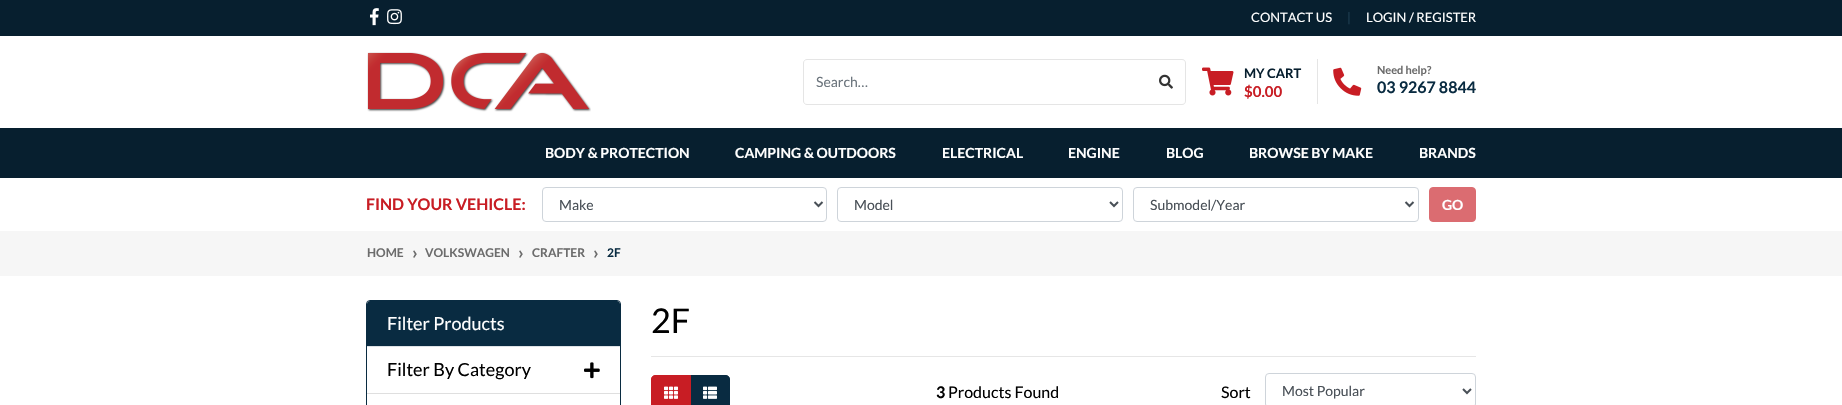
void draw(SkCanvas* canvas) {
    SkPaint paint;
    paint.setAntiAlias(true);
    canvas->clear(0xFFFFFFFF);
    paint.setColor(0xFF071F2F);
    canvas->drawRect(SkRect::MakeXYWH(0, 0, 1842, 36), paint);
    canvas->drawImageRect(SkImages::DeferredFromEncodedData(SkData::MakeFromFileName("img1.png")), SkRect::MakeXYWH(370, 8, 9, 18), SkSamplingOptions());
    canvas->drawImageRect(SkImages::DeferredFromEncodedData(SkData::MakeFromFileName("img2.png")), SkRect::MakeXYWH(387, 9, 15, 16), SkSamplingOptions());
    SkFont font1(fontMgr->matchFamilyStyle("Lato", SkFontStyle::Normal()), 13);
    font1.setSubpixel(true);
    paint.setColor(0xFFFFFFFF);
    canvas->drawString("CONTACT US", 1251, 22, font1, paint);
    paint.setColor(0xFF1E3E53);
    canvas->drawString("|", 1347, 22, font1, paint);
    paint.setColor(0xFFFFFFFF);
    canvas->drawString("LOGIN / REGISTER", 1366, 22, font1, paint);
    canvas->drawImageRect(SkImages::DeferredFromEncodedData(SkData::MakeFromFileName("img3.png")), SkRect::MakeXYWH(367, 52, 224, 60), SkSamplingOptions());
    paint.setStyle(SkPaint::kStroke_Style);
    paint.setStrokeWidth(1);
    paint.setColor(0xFFE5E5E5);
    canvas->drawPath(SkPathBuilder().moveTo(807, 59.5f).lineTo(1147.5f, 59.5f).lineTo(1147.5f, 104.5f).lineTo(807, 104.5f).cubicTo(805, 104.5f, 803.5f, 103, 803.5f, 101).lineTo(803.5f, 63).cubicTo(803.5f, 61, 805, 59.5f, 807, 59.5f).close().detach(), paint);
    SkFont font2(fontMgr->matchFamilyStyle("Lato", SkFontStyle::Normal()), 14);
    font2.setSubpixel(true);
    paint.setStyle(SkPaint::kFill_Style);
    paint.setColor(0xFF6C757D);
    canvas->drawString("Search…", 816, 87, font2, paint);
    paint.setColor(0xFFFFFFFF);
    canvas->drawPath(SkPathBuilder().moveTo(1147, 59).lineTo(1182, 59).cubicTo(1184, 59, 1186, 61, 1186, 63).lineTo(1186, 101).cubicTo(1186, 103, 1184, 105, 1182, 105).lineTo(1147, 105).close().detach(), paint);
    paint.setColor(0xFFE5E5E5);
    canvas->drawPath(SkPathBuilder(SkPathFillType::kEvenOdd).moveTo(1147, 59).lineTo(1182, 59).cubicTo(1184, 59, 1186, 61, 1186, 63).lineTo(1186, 101).cubicTo(1186, 103, 1184, 105, 1182, 105).lineTo(1147, 105).close().moveTo(1147, 60).lineTo(1182, 60).cubicTo(1184, 60, 1185, 61, 1185, 63).lineTo(1185, 101).cubicTo(1185, 103, 1184, 104, 1182, 104).lineTo(1147, 104).close().detach(), paint);
    canvas->drawImageRect(SkImages::DeferredFromEncodedData(SkData::MakeFromFileName("img4.png")), SkRect::MakeXYWH(1159, 74, 14, 15), SkSamplingOptions());
    canvas->drawImageRect(SkImages::DeferredFromEncodedData(SkData::MakeFromFileName("img5.png")), SkRect::MakeXYWH(1202, 67, 32, 29), SkSamplingOptions());
    SkFont font3(fontMgr->matchFamilyStyle("Lato", SkFontStyle::Bold()), 13);
    font3.setSubpixel(true);
    paint.setColor(0xFF071F2F);
    canvas->drawString("MY CART", 1244, 78, font3, paint);
    SkFont font4(fontMgr->matchFamilyStyle("Lato", SkFontStyle::Bold()), 15);
    font4.setSubpixel(true);
    paint.setColor(0xFFC81D24);
    canvas->drawString("$0.00", 1244, 97, font4, paint);
    paint.setColor(0xFFE5E5E5);
    canvas->drawRect(SkRect::MakeXYWH(1317, 59, 1, 45), paint);
    canvas->drawImageRect(SkImages::DeferredFromEncodedData(SkData::MakeFromFileName("img6.png")), SkRect::MakeXYWH(1333, 67, 29, 29), SkSamplingOptions());
    SkFont font5(fontMgr->matchFamilyStyle("Lato", SkFontStyle::Bold()), 11);
    font5.setSubpixel(true);
    paint.setColor(0xFF6C6C6C);
    canvas->drawString("Need help?", 1377, 74, font5, paint);
    SkFont font6(fontMgr->matchFamilyStyle("Lato", SkFontStyle::Bold()), 16);
    font6.setSubpixel(true);
    paint.setColor(0xFF092B41);
    canvas->drawString("03 9267 8844", 1377, 93, font6, paint);
    paint.setColor(0xFF071F2F);
    canvas->drawRect(SkRect::MakeXYWH(0, 128, 1842, 50), paint);
    SkFont font7(fontMgr->matchFamilyStyle("Lato", SkFontStyle::Bold()), 14);
    font7.setSubpixel(true);
    paint.setColor(0xFFFFFFFF);
    canvas->drawString("BODY & PROTECTION", 545, 158, font7, paint);
    canvas->drawString("CAMPING & OUTDOORS", 735, 158, font7, paint);
    canvas->drawString("ELECTRICAL", 942, 158, font7, paint);
    canvas->drawString("ENGINE", 1068, 158, font7, paint);
    canvas->drawString("BLOG", 1166, 158, font7, paint);
    canvas->drawString("BROWSE BY MAKE", 1249, 158, font7, paint);
    canvas->drawString("BRANDS", 1419, 158, font7, paint);
    paint.setColor(0xFFC81D24);
    canvas->drawString("FIND YOUR VEHICLE:", 366, 210, font6, paint);
    paint.setStyle(SkPaint::kStroke_Style);
    paint.setColor(0xFFCED4DA);
    canvas->drawRoundRect(SkRect::MakeXYWH(542.5f, 187.5f, 284, 34), 3.5f, 3.5f, paint);
    paint.setStrokeWidth(2);
    paint.setColor(0xFF495057);
    canvas->drawPath(SkPathBuilder().moveTo(814.5f, 202).lineTo(818.5f, 206).lineTo(822.5f, 202).detach(), paint);
    paint.setStyle(SkPaint::kFill_Style);
    canvas->drawString("Make", 559, 210, font2, paint);
    paint.setStyle(SkPaint::kStroke_Style);
    paint.setStrokeWidth(1);
    paint.setColor(0xFFCED4DA);
    canvas->drawRoundRect(SkRect::MakeXYWH(837.5f, 187.5f, 285, 34), 3.5f, 3.5f, paint);
    paint.setStrokeWidth(2);
    paint.setColor(0xFF495057);
    canvas->drawPath(SkPathBuilder().moveTo(1110, 202).lineTo(1114, 206).lineTo(1118, 202).detach(), paint);
    paint.setStyle(SkPaint::kFill_Style);
    canvas->drawString("Model", 854, 210, font2, paint);
    paint.setStyle(SkPaint::kStroke_Style);
    paint.setStrokeWidth(1);
    paint.setColor(0xFFCED4DA);
    canvas->drawRoundRect(SkRect::MakeXYWH(1133.5f, 187.5f, 285, 34), 3.5f, 3.5f, paint);
    paint.setStrokeWidth(2);
    paint.setColor(0xFF495057);
    canvas->drawPath(SkPathBuilder().moveTo(1405.5f, 202).lineTo(1409.5f, 206).lineTo(1413.5f, 202).detach(), paint);
    paint.setStyle(SkPaint::kFill_Style);
    canvas->drawString("Submodel/Year", 1150, 210, font2, paint);
    paint.setColor(0xFFDB6C71);
    canvas->drawRoundRect(SkRect::MakeXYWH(1429.5f, 187.5f, 46, 34), 3.5f, 3.5f, paint);
    paint.setStyle(SkPaint::kStroke_Style);
    paint.setStrokeWidth(1);
    canvas->drawRoundRect(SkRect::MakeXYWH(1429.5f, 187.5f, 46, 34), 3.5f, 3.5f, paint);
    paint.setStyle(SkPaint::kFill_Style);
    paint.setColor(0xFFFFFFFF);
    canvas->drawString("GO", 1442, 210, font7, paint);
    paint.setColor(0xFFF6F6F6);
    canvas->drawRect(SkRect::MakeXYWH(0, 231, 1842, 45), paint);
    SkFont font8(fontMgr->matchFamilyStyle("Lato", SkFontStyle::Bold()), 12);
    font8.setSubpixel(true);
    paint.setColor(0xFF6C6C6C);
    canvas->drawString("HOME", 367, 257, font8, paint);
    SkFont font9(fontMgr->matchFamilyStyle("Lato", SkFontStyle::Bold()), 18);
    font9.setSubpixel(true);
    canvas->drawString("›", 412, 259, font9, paint);
    canvas->drawString("VOLKSWAGEN", 425, 257, font8, paint);
    canvas->drawString("›", 518, 259, font9, paint);
    canvas->drawString("CRAFTER", 532, 257, font8, paint);
    canvas->drawString("›", 593, 259, font9, paint);
    paint.setColor(0xFF092B41);
    canvas->drawString("2F", 607, 257, font8, paint);
    paint.setStyle(SkPaint::kStroke_Style);
    canvas->drawRoundRect(SkRect::MakeXYWH(366.5f, 300.5f, 254, 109), 3.5f, 3.5f, paint);
    paint.setStyle(SkPaint::kFill_Style);
    canvas->drawPath(SkPathBuilder().moveTo(370, 301).lineTo(617, 301).cubicTo(618.5f, 301, 620, 302.5f, 620, 304).lineTo(620, 347).lineTo(367, 347).lineTo(367, 304).cubicTo(367, 302.5f, 368.5f, 301, 370, 301).close().detach(), paint);
    paint.setColor(0xFFDEE2E6);
    canvas->drawRect(SkRect::MakeXYWH(367, 346, 253, 1), paint);
    SkFont font10(fontMgr->matchFamilyStyle("Lato", SkFontStyle::Normal()), 18);
    font10.setSubpixel(true);
    paint.setColor(0xFFFFFFFF);
    canvas->drawString("Filter Products", 387, 330, font10, paint);
    paint.setColor(0xFFDFDFDF);
    canvas->drawRect(SkRect::MakeXYWH(367, 393, 253, 1), paint);
    paint.setColor(0xFF000000);
    canvas->drawString("Filter By Category", 387, 376, font10, paint);
    canvas->drawImageRect(SkImages::DeferredFromEncodedData(SkData::MakeFromFileName("img7.png")), SkRect::MakeXYWH(584, 362, 16, 17), SkSamplingOptions());
    SkFont font11(fontMgr->matchFamilyStyle("Lato", SkFontStyle::Normal()), 34);
    font11.setSubpixel(true);
    canvas->drawString("2F", 651, 333, font11, paint);
    paint.setColor(0xFFE6E6E6);
    canvas->drawRect(SkRect::MakeXYWH(651, 356, 825, 1), paint);
    paint.setColor(0xFF092B41);
    canvas->drawPath(SkPathBuilder().moveTo(690.5f, 375.5f).lineTo(726, 375.5f).cubicTo(728, 375.5f, 729.5f, 377, 729.5f, 379).lineTo(729.5f, 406).cubicTo(729.5f, 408, 728, 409.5f, 726, 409.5f).lineTo(690.5f, 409.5f).close().detach(), paint);
    paint.setStyle(SkPaint::kStroke_Style);
    canvas->drawPath(SkPathBuilder().moveTo(690.5f, 375.5f).lineTo(726, 375.5f).cubicTo(728, 375.5f, 729.5f, 377, 729.5f, 379).lineTo(729.5f, 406).cubicTo(729.5f, 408, 728, 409.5f, 726, 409.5f).lineTo(690.5f, 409.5f).close().detach(), paint);
    paint.setStyle(SkPaint::kFill_Style);
    paint.setColor(0xFFC81D24);
    canvas->drawPath(SkPathBuilder().moveTo(655, 375.5f).lineTo(690.5f, 375.5f).lineTo(690.5f, 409.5f).lineTo(655, 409.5f).cubicTo(653, 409.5f, 651.5f, 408, 651.5f, 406).lineTo(651.5f, 379).cubicTo(651.5f, 377, 653, 375.5f, 655, 375.5f).close().detach(), paint);
    paint.setStyle(SkPaint::kStroke_Style);
    canvas->drawPath(SkPathBuilder().moveTo(655, 375.5f).lineTo(690.5f, 375.5f).lineTo(690.5f, 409.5f).lineTo(655, 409.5f).cubicTo(653, 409.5f, 651.5f, 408, 651.5f, 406).lineTo(651.5f, 379).cubicTo(651.5f, 377, 653, 375.5f, 655, 375.5f).close().detach(), paint);
    canvas->drawImageRect(SkImages::DeferredFromEncodedData(SkData::MakeFromFileName("img8.png")), SkRect::MakeXYWH(664, 386, 14, 13), SkSamplingOptions());
    canvas->drawImageRect(SkImages::DeferredFromEncodedData(SkData::MakeFromFileName("img9.png")), SkRect::MakeXYWH(703, 386, 14, 13), SkSamplingOptions());
    paint.setStyle(SkPaint::kFill_Style);
    paint.setColor(0xFF000000);
    canvas->drawString("3", 936, 398, font6, paint);
    SkFont font12(fontMgr->matchFamilyStyle("Lato", SkFontStyle::Normal()), 16);
    font12.setSubpixel(true);
    canvas->drawString("Products Found", 948, 398, font12, paint);
    canvas->drawString("Sort", 1221, 398, font12, paint);
    paint.setStyle(SkPaint::kStroke_Style);
    paint.setColor(0xFFCED4DA);
    canvas->drawRoundRect(SkRect::MakeXYWH(1265.5f, 373.5f, 210, 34), 3.5f, 3.5f, paint);
    paint.setStrokeWidth(2);
    paint.setColor(0xFF495057);
    canvas->drawPath(SkPathBuilder().moveTo(1463, 389).lineTo(1467, 393).lineTo(1471, 389).detach(), paint);
    paint.setStyle(SkPaint::kFill_Style);
    canvas->drawString("Most Popular", 1282, 396, font2, paint);
}
